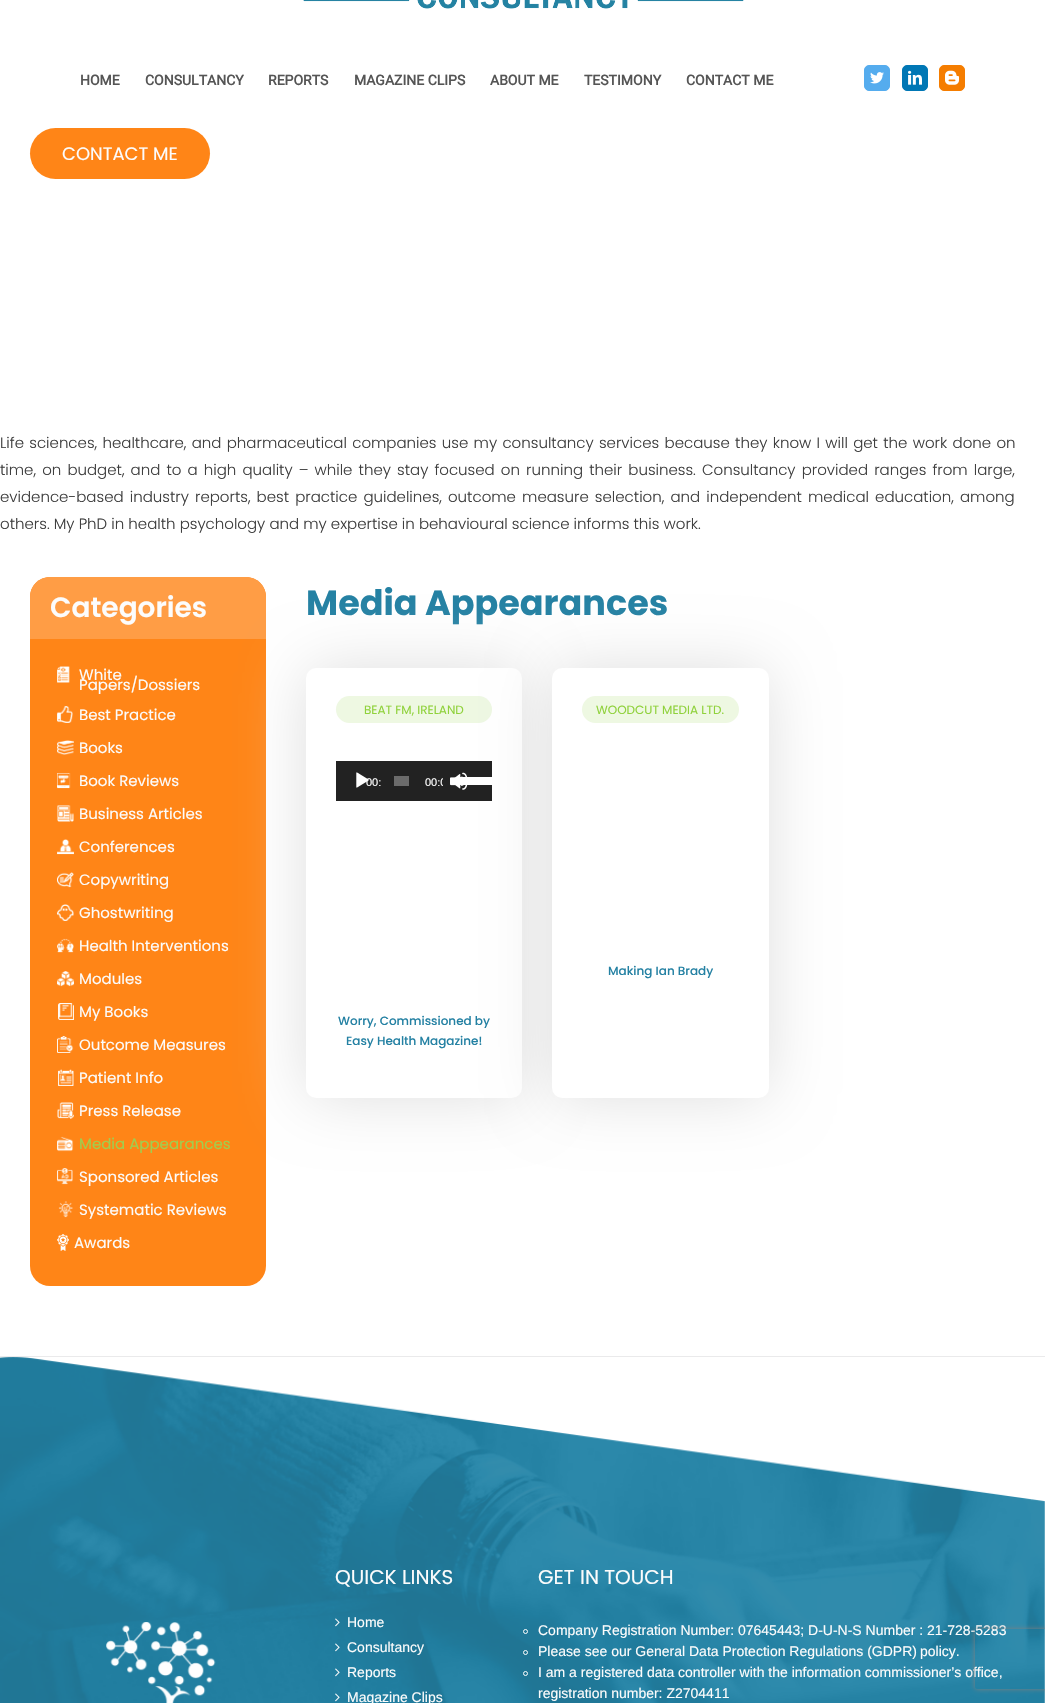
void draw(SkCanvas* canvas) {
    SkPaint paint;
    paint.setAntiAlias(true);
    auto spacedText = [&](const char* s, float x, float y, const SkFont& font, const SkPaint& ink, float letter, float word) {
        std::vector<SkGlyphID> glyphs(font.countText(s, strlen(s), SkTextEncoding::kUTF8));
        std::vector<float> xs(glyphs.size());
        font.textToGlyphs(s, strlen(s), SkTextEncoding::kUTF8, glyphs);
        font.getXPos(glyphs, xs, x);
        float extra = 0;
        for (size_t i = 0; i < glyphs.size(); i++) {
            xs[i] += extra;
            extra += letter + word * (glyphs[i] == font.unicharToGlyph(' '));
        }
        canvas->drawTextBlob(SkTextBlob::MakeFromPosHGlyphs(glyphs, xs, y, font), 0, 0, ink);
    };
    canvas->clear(0xFFFFFFFF);
    canvas->drawImageRect(SkImages::DeferredFromEncodedData(SkData::MakeFromFileName("img1.png")), SkRect::MakeXYWH(303, 0, 441, 9), SkSamplingOptions());
    SkFont font1(fontMgr->matchFamilyStyle("Roboto", SkFontStyle::Bold()), 14);
    font1.setSubpixel(true);
    paint.setColor(0xFF555555);
    canvas->drawString("HOME", 80, 85, font1, paint);
    canvas->drawString("CONSULTANCY", 145, 85, font1, paint);
    canvas->drawString("REPORTS", 268, 85, font1, paint);
    canvas->drawString("MAGAZINE CLIPS", 354, 85, font1, paint);
    canvas->drawString("ABOUT ME", 490, 85, font1, paint);
    canvas->drawString("TESTIMONY", 584, 85, font1, paint);
    canvas->drawString("CONTACT ME", 686, 85, font1, paint);
    paint.setColor(0xFF55ACEE);
    canvas->drawRoundRect(SkRect::MakeXYWH(864.5f, 65.5f, 25, 25), 4.5f, 4.5f, paint);
    paint.setStyle(SkPaint::kStroke_Style);
    paint.setStrokeWidth(1);
    canvas->drawRoundRect(SkRect::MakeXYWH(864.5f, 65.5f, 25, 25), 4.5f, 4.5f, paint);
    canvas->drawImageRect(SkImages::DeferredFromEncodedData(SkData::MakeFromFileName("img2.png")), SkRect::MakeXYWH(870, 72, 14, 12), SkSamplingOptions());
    paint.setStyle(SkPaint::kFill_Style);
    paint.setColor(0xFF0077B5);
    canvas->drawRoundRect(SkRect::MakeXYWH(902.5f, 65.5f, 25, 25), 4.5f, 4.5f, paint);
    paint.setStyle(SkPaint::kStroke_Style);
    canvas->drawRoundRect(SkRect::MakeXYWH(902.5f, 65.5f, 25, 25), 4.5f, 4.5f, paint);
    canvas->drawImageRect(SkImages::DeferredFromEncodedData(SkData::MakeFromFileName("img3.png")), SkRect::MakeXYWH(908, 70, 14, 15), SkSamplingOptions());
    paint.setStyle(SkPaint::kFill_Style);
    paint.setColor(0xFFF57D00);
    canvas->drawRoundRect(SkRect::MakeXYWH(939.5f, 65.5f, 25, 25), 4.5f, 4.5f, paint);
    paint.setStyle(SkPaint::kStroke_Style);
    canvas->drawRoundRect(SkRect::MakeXYWH(939.5f, 65.5f, 25, 25), 4.5f, 4.5f, paint);
    canvas->drawImageRect(SkImages::DeferredFromEncodedData(SkData::MakeFromFileName("img4.png")), SkRect::MakeXYWH(945, 70, 14, 15), SkSamplingOptions());
    paint.setStyle(SkPaint::kFill_Style);
    paint.setColor(0xFFFF8517);
    canvas->drawRoundRect(SkRect::MakeXYWH(30, 128, 180, 51), 25.5f, 25.5f, paint);
    SkFont font2(fontMgr->matchFamilyStyle("Poppins", SkFontStyle::Normal()), 18);
    font2.setSubpixel(true);
    paint.setColor(0xFFFCFCFC);
    canvas->drawString("CONTACT ME", 62, 160, font2, paint);
    SkFont font3(fontMgr->matchFamilyStyle("Poppins", SkFontStyle(300, SkFontStyle::kNormal_Width, SkFontStyle::kUpright_Slant)), 15);
    font3.setSubpixel(true);
    paint.setColor(0xFF3F3F3F);
    spacedText("Life sciences, healthcare, and pharmaceutical companies use my consultancy services because they know I will get the work done on", 0, 448, font3, paint, 0, 1.2f);
    spacedText("time, on budget, and to a high quality – while they stay focused on running their business. Consultancy provided ranges from large,", 0, 475, font3, paint, 0, 2);
    spacedText("evidence-based industry reports, best practice guidelines, outcome measure selection, and independent medical education, among", 0, 502, font3, paint, 0, 2);
    canvas->drawString("others. My PhD in health psychology and my expertise in behavioural science informs this work.", 0, 529, font3, paint);
    paint.setColor(0xFFEAEAEB);
    canvas->drawRect(SkRect::MakeXYWH(0, 1356, 1045, 1), paint);
    paint.setColor(0xFFFF8517);
    canvas->drawRoundRect(SkRect::MakeXYWH(30, 577, 236, 709), 20, 20, paint);
    paint.setColor(0xFFFF9D45);
    canvas->drawPath(SkPathBuilder().moveTo(50, 577).lineTo(246, 577).cubicTo(257, 577, 266, 586, 266, 597).lineTo(266, 639).lineTo(30, 639).lineTo(30, 597).cubicTo(30, 586, 39, 577, 50, 577).close().detach(), paint);
    SkFont font4(fontMgr->matchFamilyStyle("Poppins", SkFontStyle(600, SkFontStyle::kNormal_Width, SkFontStyle::kUpright_Slant)), 28);
    font4.setSubpixel(true);
    paint.setColor(0xFFFCFCFC);
    canvas->drawString("Categories", 50, 617, font4, paint);
    canvas->drawImageRect(SkImages::DeferredFromEncodedData(SkData::MakeFromFileName("img5.png")), SkRect::MakeXYWH(57, 666, 13, 17), SkSamplingOptions());
    SkFont font5(fontMgr->matchFamilyStyle("Poppins", SkFontStyle::Normal()), 15);
    font5.setSubpixel(true);
    canvas->drawString("White", 79, 680, font5, paint);
    canvas->drawString("Papers/Dossiers", 79, 690, font5, paint);
    canvas->drawImageRect(SkImages::DeferredFromEncodedData(SkData::MakeFromFileName("img6.png")), SkRect::MakeXYWH(57, 706, 16, 17), SkSamplingOptions());
    canvas->drawString("Best Practice", 79, 720, font5, paint);
    canvas->drawImageRect(SkImages::DeferredFromEncodedData(SkData::MakeFromFileName("img7.png")), SkRect::MakeXYWH(57, 740, 17, 15), SkSamplingOptions());
    canvas->drawString("Books", 79, 753, font5, paint);
    canvas->drawImageRect(SkImages::DeferredFromEncodedData(SkData::MakeFromFileName("img8.png")), SkRect::MakeXYWH(57, 773, 14, 16), SkSamplingOptions());
    canvas->drawString("Book Reviews", 79, 786, font5, paint);
    canvas->drawImageRect(SkImages::DeferredFromEncodedData(SkData::MakeFromFileName("img9.png")), SkRect::MakeXYWH(57, 805, 17, 17), SkSamplingOptions());
    canvas->drawString("Business Articles", 79, 819, font5, paint);
    canvas->drawImageRect(SkImages::DeferredFromEncodedData(SkData::MakeFromFileName("img10.png")), SkRect::MakeXYWH(57, 839, 17, 16), SkSamplingOptions());
    canvas->drawString("Conferences", 79, 852, font5, paint);
    canvas->drawImageRect(SkImages::DeferredFromEncodedData(SkData::MakeFromFileName("img11.png")), SkRect::MakeXYWH(57, 872, 17, 16), SkSamplingOptions());
    canvas->drawString("Copywriting", 79, 885, font5, paint);
    canvas->drawImageRect(SkImages::DeferredFromEncodedData(SkData::MakeFromFileName("img12.png")), SkRect::MakeXYWH(57, 904, 17, 17), SkSamplingOptions());
    canvas->drawString("Ghostwriting", 79, 918, font5, paint);
    canvas->drawImageRect(SkImages::DeferredFromEncodedData(SkData::MakeFromFileName("img13.png")), SkRect::MakeXYWH(57, 938, 17, 15), SkSamplingOptions());
    canvas->drawString("Health Interventions", 79, 951, font5, paint);
    canvas->drawImageRect(SkImages::DeferredFromEncodedData(SkData::MakeFromFileName("img14.png")), SkRect::MakeXYWH(57, 971, 17, 16), SkSamplingOptions());
    canvas->drawString("Modules", 79, 984, font5, paint);
    canvas->drawImageRect(SkImages::DeferredFromEncodedData(SkData::MakeFromFileName("img15.png")), SkRect::MakeXYWH(58, 1003, 16, 17), SkSamplingOptions());
    canvas->drawString("My Books", 79, 1017, font5, paint);
    canvas->drawImageRect(SkImages::DeferredFromEncodedData(SkData::MakeFromFileName("img16.png")), SkRect::MakeXYWH(57, 1036, 17, 17), SkSamplingOptions());
    canvas->drawString("Outcome Measures", 79, 1050, font5, paint);
    canvas->drawImageRect(SkImages::DeferredFromEncodedData(SkData::MakeFromFileName("img17.png")), SkRect::MakeXYWH(58, 1069, 16, 17), SkSamplingOptions());
    canvas->drawString("Patient Info", 79, 1083, font5, paint);
    canvas->drawImageRect(SkImages::DeferredFromEncodedData(SkData::MakeFromFileName("img18.png")), SkRect::MakeXYWH(57, 1102, 17, 17), SkSamplingOptions());
    canvas->drawString("Press Release", 79, 1116, font5, paint);
    canvas->drawImageRect(SkImages::DeferredFromEncodedData(SkData::MakeFromFileName("img19.png")), SkRect::MakeXYWH(57, 1136, 17, 16), SkSamplingOptions());
    paint.setColor(0xFFA0CE4E);
    canvas->drawString("Media Appearances", 79, 1149, font5, paint);
    canvas->drawImageRect(SkImages::DeferredFromEncodedData(SkData::MakeFromFileName("img20.png")), SkRect::MakeXYWH(57, 1168, 16, 17), SkSamplingOptions());
    paint.setColor(0xFFFCFCFC);
    canvas->drawString("Sponsored Articles", 79, 1182, font5, paint);
    canvas->drawImageRect(SkImages::DeferredFromEncodedData(SkData::MakeFromFileName("img21.png")), SkRect::MakeXYWH(58, 1201, 15, 17), SkSamplingOptions());
    canvas->drawString("Systematic Reviews", 79, 1215, font5, paint);
    canvas->drawImageRect(SkImages::DeferredFromEncodedData(SkData::MakeFromFileName("img22.png")), SkRect::MakeXYWH(57, 1234, 12, 17), SkSamplingOptions());
    canvas->drawString("Awards", 74, 1248, font5, paint);
    SkFont font6(fontMgr->matchFamilyStyle("Poppins", SkFontStyle::Bold()), 35);
    font6.setSubpixel(true);
    paint.setColor(0xFF2481A3);
    canvas->drawString("Media Appearances", 306, 615, font6, paint);
    paint.setColor(0xFFDCDCDC);
    paint.setMaskFilter(SkMaskFilter::MakeBlur(kNormal_SkBlurStyle, 32));
    canvas->drawRoundRect(SkRect::MakeXYWH(309, 671, 210, 424), 7, 7, paint);
    paint.setMaskFilter(nullptr);
    paint.setColor(0xFFFFFFFF);
    canvas->drawRoundRect(SkRect::MakeXYWH(306, 668, 216, 430), 10, 10, paint);
    paint.setColor(0xFFEEF8E2);
    canvas->drawRoundRect(SkRect::MakeXYWH(336, 696, 156, 27), 13.5f, 13.5f, paint);
    SkFont font7(fontMgr->matchFamilyStyle("Poppins", SkFontStyle::Normal()), 12);
    font7.setSubpixel(true);
    paint.setColor(0xFF90D23C);
    canvas->drawString("BEAT FM, IRELAND", 364, 714, font7, paint);
    paint.setColor(0xFFDCDCDC);
    paint.setMaskFilter(SkMaskFilter::MakeBlur(kNormal_SkBlurStyle, 32));
    canvas->drawRoundRect(SkRect::MakeXYWH(555, 671, 211, 424), 7, 7, paint);
    paint.setMaskFilter(nullptr);
    paint.setColor(0xFF222222);
    canvas->drawRect(SkRect::MakeXYWH(336, 761, 156, 40), paint);
    SkFont font8(fontMgr->matchFamilyStyle("Liberation Sans", SkFontStyle::Normal()), 11);
    font8.setSubpixel(true);
    paint.setColor(0xFFFCFCFC);
    canvas->drawString("00:", 366, 786, font8, paint);
    canvas->drawImageRect(SkImages::DeferredFromEncodedData(SkData::MakeFromFileName("img23.png")), SkRect::MakeXYWH(356, 772, 13, 16), SkSamplingOptions());
    paint.setColor(0xFF6B6B6B);
    canvas->drawRect(SkRect::MakeXYWH(394, 776, 15, 10), paint);
    canvas->drawImageRect(SkImages::DeferredFromEncodedData(SkData::MakeFromFileName("img24.png")), SkRect::MakeXYWH(450, 772, 18, 18), SkSamplingOptions());
    canvas->save();
    canvas->clipRect(SkRect::MakeXYWH(419, 761, 24, 40));
    paint.setColor(0xFFFCFCFC);
    canvas->drawString("00:0", 425, 786, font8, paint);
    canvas->restore();
    paint.setColor(0xFFFFFFFF);
    canvas->drawRect(SkRect::MakeXYWH(457, 777, 35, 8), paint);
    SkFont font9(fontMgr->matchFamilyStyle("Poppins", SkFontStyle(500, SkFontStyle::kNormal_Width, SkFontStyle::kUpright_Slant)), 12);
    font9.setSubpixel(true);
    paint.setColor(0xFF2481A3);
    canvas->drawString("Worry, Commissioned by", 338, 1025, font9, paint);
    canvas->drawString("Easy Health Magazine!", 346, 1045, font9, paint);
    paint.setColor(0xFFFFFFFF);
    canvas->drawRoundRect(SkRect::MakeXYWH(552, 668, 217, 430), 10, 10, paint);
    paint.setColor(0xFFEEF8E2);
    canvas->drawRoundRect(SkRect::MakeXYWH(582, 696, 157, 27), 13.5f, 13.5f, paint);
    paint.setColor(0xFF90D23C);
    canvas->drawString("WOODCUT MEDIA LTD.", 596, 714, font7, paint);
    paint.setColor(0xFF2481A3);
    canvas->drawString("Making Ian Brady", 608, 975, font9, paint);
    canvas->drawImageRect(SkImages::DeferredFromEncodedData(SkData::MakeFromFileName("img25.png")), SkRect::MakeXYWH(0, 1357, 1045, 346), SkSamplingOptions());
    canvas->drawImageRect(SkImages::DeferredFromEncodedData(SkData::MakeFromFileName("img26.png")), SkRect::MakeXYWH(106, 1622, 110, 81), SkSamplingOptions());
    SkFont font10(fontMgr->matchFamilyStyle("Poppins", SkFontStyle::Normal()), 20);
    font10.setSubpixel(true);
    paint.setColor(0xFFFCFCFC);
    canvas->drawString("QUICK LINKS", 335, 1584, font10, paint);
    canvas->drawImageRect(SkImages::DeferredFromEncodedData(SkData::MakeFromFileName("img27.png")), SkRect::MakeXYWH(335, 1618, 5, 9), SkSamplingOptions());
    SkFont font11(fontMgr->matchFamilyStyle("Liberation Sans", SkFontStyle::Normal()), 14);
    font11.setSubpixel(true);
    canvas->drawString("Home", 347, 1627, font11, paint);
    canvas->drawImageRect(SkImages::DeferredFromEncodedData(SkData::MakeFromFileName("img28.png")), SkRect::MakeXYWH(335, 1643, 5, 9), SkSamplingOptions());
    canvas->drawString("Consultancy", 347, 1652, font11, paint);
    canvas->drawImageRect(SkImages::DeferredFromEncodedData(SkData::MakeFromFileName("img29.png")), SkRect::MakeXYWH(335, 1668, 5, 9), SkSamplingOptions());
    canvas->drawString("Reports", 347, 1677, font11, paint);
    canvas->drawImageRect(SkImages::DeferredFromEncodedData(SkData::MakeFromFileName("img30.png")), SkRect::MakeXYWH(335, 1693, 5, 9), SkSamplingOptions());
    canvas->drawString("Magazine Clips", 347, 1702, font11, paint);
    canvas->drawString("GET IN TOUCH", 538, 1584, font10, paint);
    paint.setStyle(SkPaint::kStroke_Style);
    canvas->drawCircle(525.5f, 1631.5f, 2, paint);
    paint.setStyle(SkPaint::kFill_Style);
    canvas->drawString("Company Registration Number: 07645443; D-U-N-S Number : 21-728-5283", 538, 1635, font11, paint);
    paint.setStyle(SkPaint::kStroke_Style);
    canvas->drawCircle(525.5f, 1652.5f, 2, paint);
    paint.setStyle(SkPaint::kFill_Style);
    canvas->drawString("Please see our General Data Protection Regulations (GDPR)", 538, 1656, font11, paint);
    canvas->drawString("policy.", 920, 1656, font11, paint);
    paint.setStyle(SkPaint::kStroke_Style);
    canvas->drawCircle(525.5f, 1673.5f, 2, paint);
    paint.setStyle(SkPaint::kFill_Style);
    canvas->drawString("I am a registered data controller with the information commissioner’s office,", 538, 1677, font11, paint);
    canvas->drawString("registration number: Z2704411", 538, 1698, font11, paint);
    canvas->save();
    canvas->clipPath(SkPathBuilder(SkPathFillType::kEvenOdd).moveTo(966, 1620).lineTo(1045, 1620).lineTo(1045, 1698).lineTo(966, 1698).close().moveTo(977, 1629).lineTo(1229, 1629).cubicTo(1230, 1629, 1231, 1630, 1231, 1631).lineTo(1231, 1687).cubicTo(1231, 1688, 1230, 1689, 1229, 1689).lineTo(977, 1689).cubicTo(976, 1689, 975, 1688, 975, 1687).lineTo(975, 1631).cubicTo(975, 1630, 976, 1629, 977, 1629).close().detach(), true);
    paint.setColor(0xFF808080);
    paint.setMaskFilter(SkMaskFilter::MakeBlur(kNormal_SkBlurStyle, 2.5f));
    canvas->drawRoundRect(SkRect::MakeXYWH(975, 1629, 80, 60), 2, 2, paint);
    paint.setMaskFilter(nullptr);
    canvas->restore();
}
